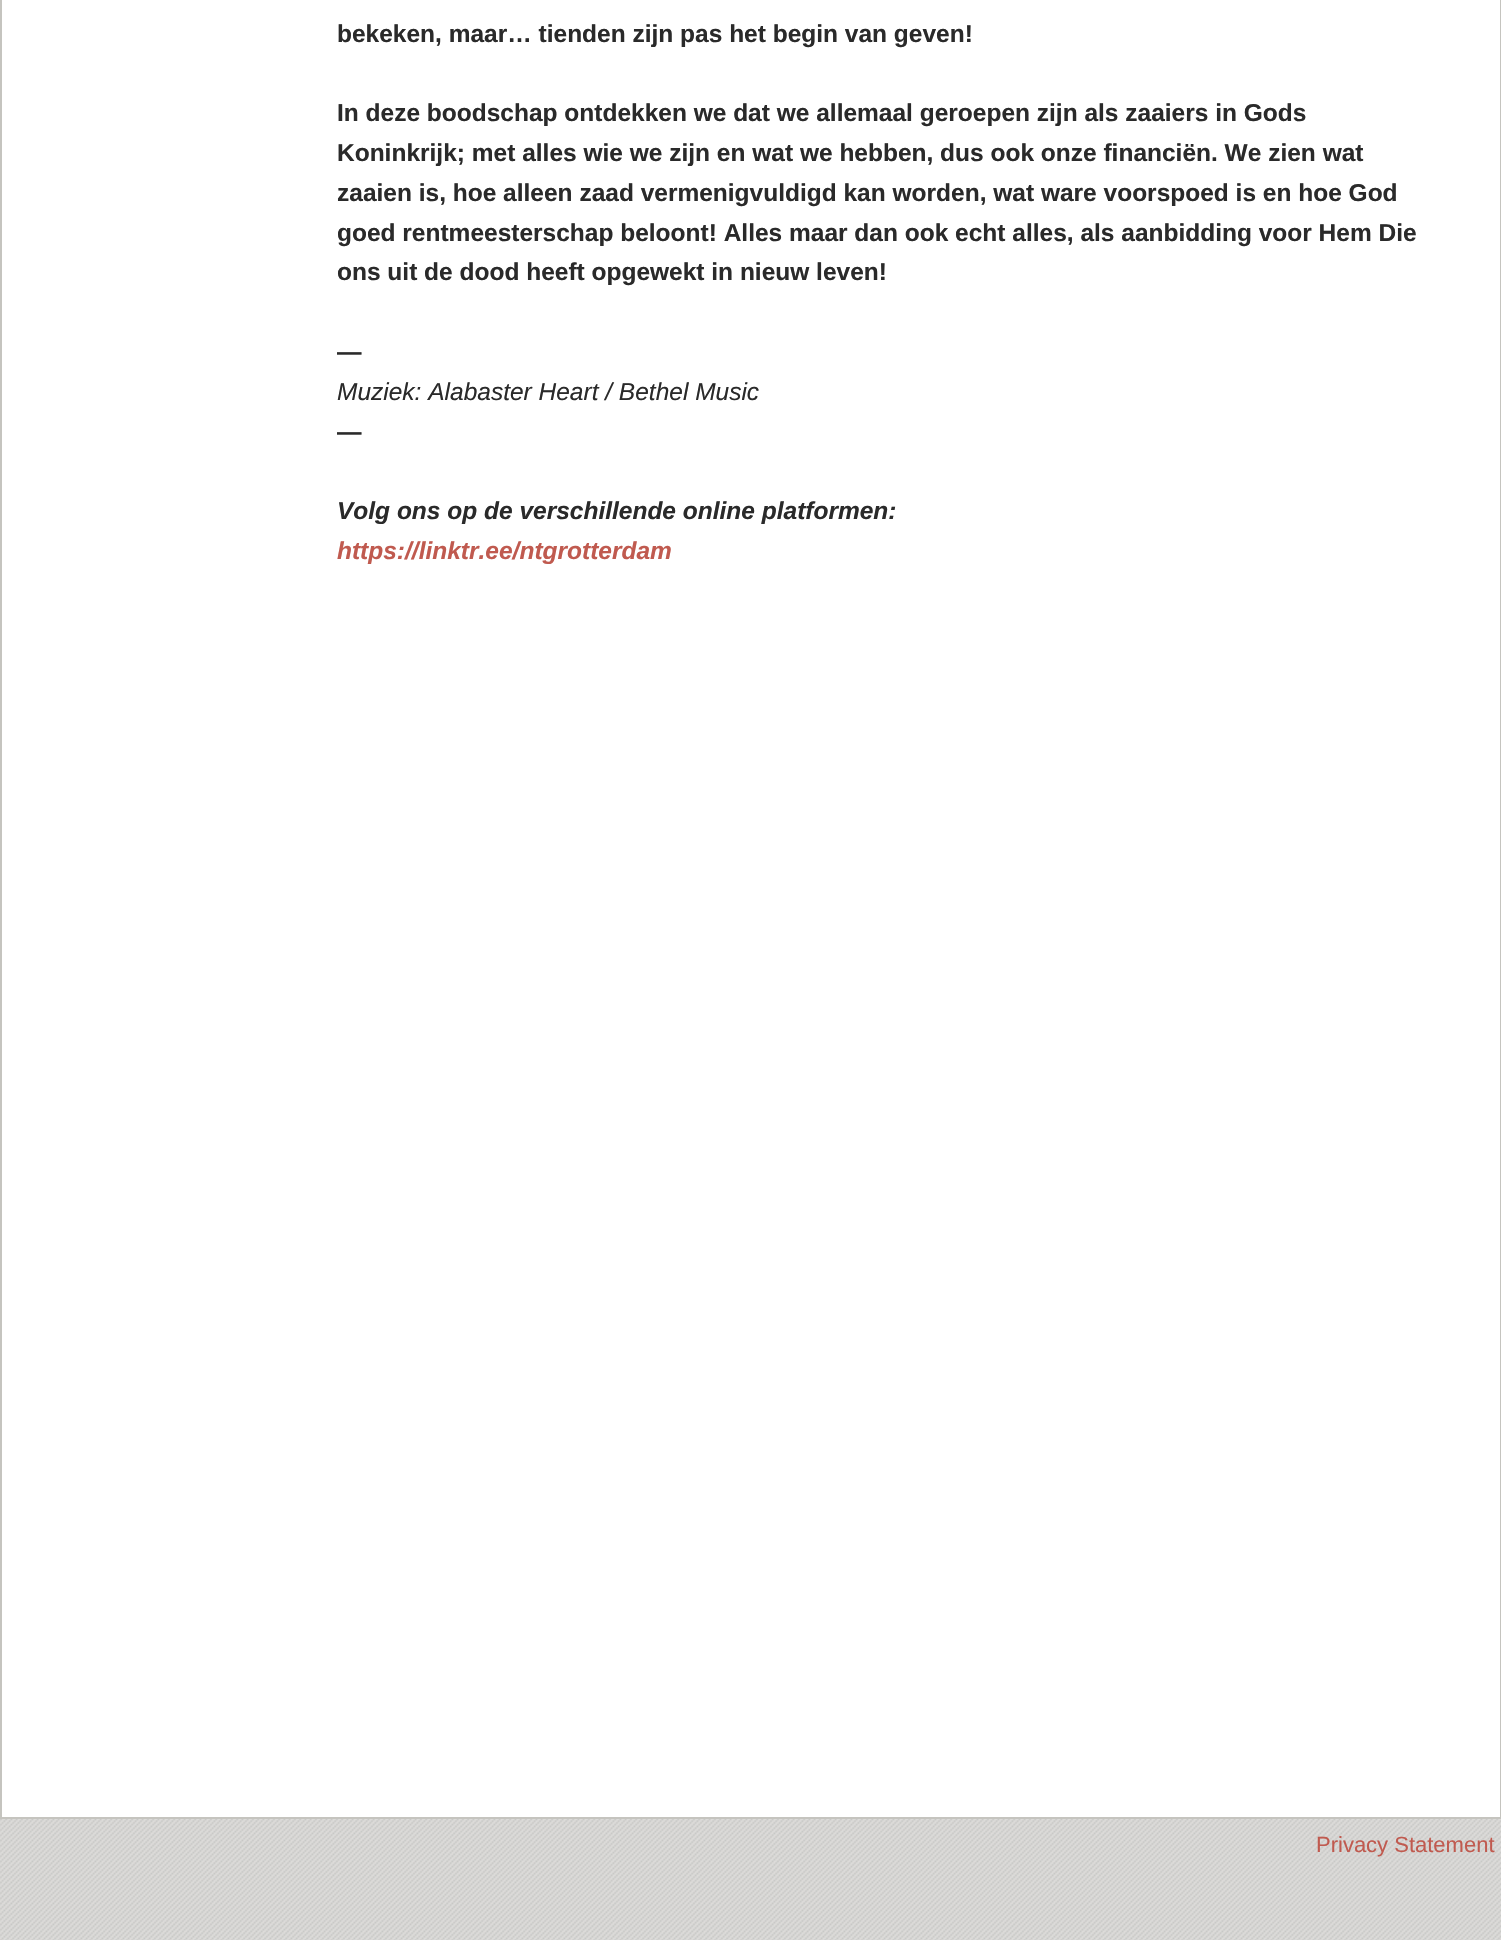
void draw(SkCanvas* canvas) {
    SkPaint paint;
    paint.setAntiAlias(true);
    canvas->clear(0xFFFFFFFF);
    canvas->drawImageRect(SkImages::DeferredFromEncodedData(SkData::MakeFromFileName("img1.png")), SkRect::MakeXYWH(0, 1819, 1501, 121), SkSamplingOptions());
    paint.setColor(0xFFC5C4BF);
    canvas->drawRect(SkRect::MakeXYWH(1500, 0, 1, 1818), paint);
    canvas->drawRect(SkRect::MakeXYWH(0, 1817, 1501, 2), paint);
    canvas->drawRect(SkRect::MakeXYWH(0, 0, 2, 1818), paint);
    SkFont font1(fontMgr->matchFamilyStyle("Liberation Sans", SkFontStyle::Bold()), 24.5f);
    font1.setSubpixel(true);
    paint.setColor(0xFF2A2A2A);
    canvas->drawString("bekeken, maar… tienden zijn pas het begin van geven!", 337, 42, font1, paint);
    canvas->drawString("In deze boodschap ontdekken we dat we allemaal geroepen zijn als zaaiers in Gods", 337, 121, font1, paint);
    canvas->drawString("Koninkrijk; met alles wie we zijn en wat we hebben, dus ook onze financiën. We zien wat", 337, 161, font1, paint);
    canvas->drawString("zaaien is, hoe alleen zaad vermenigvuldigd kan worden, wat ware voorspoed is en hoe God", 337, 201, font1, paint);
    canvas->drawString("goed rentmeesterschap beloont! Alles maar dan ook echt alles, als aanbidding voor Hem Die", 337, 241, font1, paint);
    canvas->drawString("ons uit de dood heeft opgewekt in nieuw leven!", 337, 280, font1, paint);
    canvas->drawString("—", 337, 360, font1, paint);
    SkFont font2(fontMgr->matchFamilyStyle("Liberation Sans", SkFontStyle::Italic()), 24.5f);
    font2.setSubpixel(true);
    canvas->drawString("Muziek: Alabaster Heart / Bethel Music", 337, 400, font2, paint);
    canvas->drawString("—", 337, 440, font1, paint);
    SkFont font3(fontMgr->matchFamilyStyle("Liberation Sans", SkFontStyle::BoldItalic()), 24.5f);
    font3.setSubpixel(true);
    canvas->drawString("Volg ons op de verschillende online platformen:", 337, 519, font3, paint);
    paint.setColor(0xFFC05A4F);
    canvas->drawString("https://linktr.ee/ntgrotterdam", 337, 559, font3, paint);
    SkFont font4(fontMgr->matchFamilyStyle("Liberation Sans", SkFontStyle::Normal()), 22);
    font4.setSubpixel(true);
    canvas->drawString("Privacy Statement", 1316, 1852, font4, paint);
}
